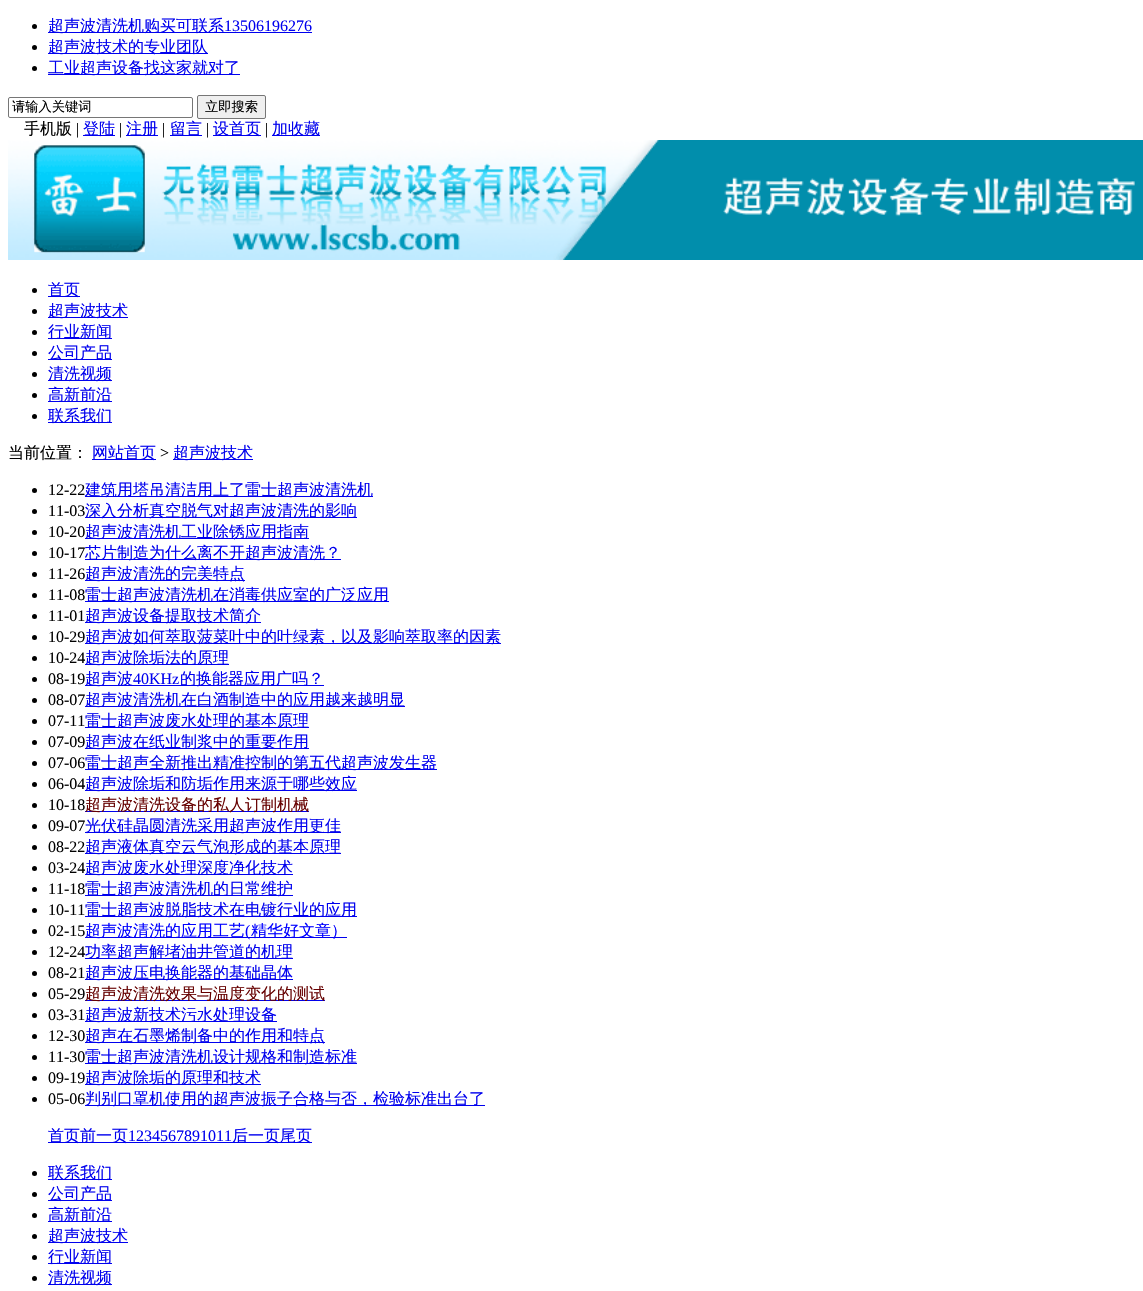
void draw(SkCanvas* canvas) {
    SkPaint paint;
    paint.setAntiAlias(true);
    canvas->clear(0xFFFFFFFF);
    paint.setColor(0xFF000000);
    canvas->drawCircle(34.5f, 26.5f, 2.5f, paint);
    paint.setColor(0xFF0000EE);
    canvas->drawRect(SkRect::MakeXYWH(48, 32, 264, 1), paint);
    SkFont font1(fontMgr->matchFamilyStyle("WenQuanYi Zen Hei", SkFontStyle(500, SkFontStyle::kNormal_Width, SkFontStyle::kUpright_Slant)), 16);
    font1.setSubpixel(true);
    canvas->drawString("超声波清洗机购买可联系", 48, 31, font1, paint);
    SkFont font2(fontMgr->matchFamilyStyle("Liberation Serif", SkFontStyle::Normal()), 16);
    font2.setSubpixel(true);
    canvas->drawString("13506196276", 224, 31, font2, paint);
    paint.setColor(0xFF000000);
    canvas->drawCircle(34.5f, 47.5f, 2.5f, paint);
    paint.setColor(0xFF0000EE);
    canvas->drawRect(SkRect::MakeXYWH(48, 53, 160, 1), paint);
    canvas->drawString("超声波技术的专业团队", 48, 52, font1, paint);
    paint.setColor(0xFF000000);
    canvas->drawCircle(34.5f, 68.5f, 2.5f, paint);
    paint.setColor(0xFF0000EE);
    canvas->drawRect(SkRect::MakeXYWH(48, 74, 192, 1), paint);
    canvas->drawString("工业超声设备找这家就对了", 48, 73, font1, paint);
    paint.setStyle(SkPaint::kStroke_Style);
    paint.setStrokeWidth(1);
    paint.setColor(0xFF767676);
    canvas->drawRoundRect(SkRect::MakeXYWH(8.5f, 97.5f, 184, 20), 1.5f, 1.5f, paint);
    SkFont font3(fontMgr->matchFamilyStyle("WenQuanYi Zen Hei", SkFontStyle(500, SkFontStyle::kNormal_Width, SkFontStyle::kUpright_Slant)), 13.25f);
    font3.setSubpixel(true);
    paint.setStyle(SkPaint::kFill_Style);
    paint.setColor(0xFF000000);
    canvas->drawString("请输入关键词", 12, 111, font3, paint);
    paint.setColor(0xFFEFEFEF);
    canvas->drawRoundRect(SkRect::MakeXYWH(197.5f, 95.5f, 68, 23), 1.5f, 1.5f, paint);
    paint.setStyle(SkPaint::kStroke_Style);
    paint.setColor(0xFF767676);
    canvas->drawRoundRect(SkRect::MakeXYWH(197.5f, 95.5f, 68, 23), 1.5f, 1.5f, paint);
    paint.setStyle(SkPaint::kFill_Style);
    paint.setColor(0xFF000000);
    canvas->drawString("立即搜索", 205, 111, font3, paint);
    canvas->drawString("手机版", 24, 134, font1, paint);
    canvas->drawString("|", 76, 134, font2, paint);
    paint.setColor(0xFF0000EE);
    canvas->drawRect(SkRect::MakeXYWH(83, 135, 32, 1), paint);
    canvas->drawString("登陆", 83, 134, font1, paint);
    paint.setColor(0xFF000000);
    canvas->drawString("|", 119, 134, font2, paint);
    paint.setColor(0xFF0000EE);
    canvas->drawRect(SkRect::MakeXYWH(126, 135, 32, 1), paint);
    canvas->drawString("注册", 126, 134, font1, paint);
    paint.setColor(0xFF000000);
    canvas->drawString("|", 162, 134, font2, paint);
    paint.setColor(0xFF0000EE);
    canvas->drawRect(SkRect::MakeXYWH(170, 135, 32, 1), paint);
    canvas->drawString("留言", 170, 134, font1, paint);
    paint.setColor(0xFF000000);
    canvas->drawString("|", 206, 134, font2, paint);
    paint.setColor(0xFF0000EE);
    canvas->drawRect(SkRect::MakeXYWH(213, 135, 48, 1), paint);
    canvas->drawString("设首页", 213, 134, font1, paint);
    paint.setColor(0xFF000000);
    canvas->drawString("|", 265, 134, font2, paint);
    paint.setColor(0xFF0000EE);
    canvas->drawRect(SkRect::MakeXYWH(272, 135, 48, 1), paint);
    canvas->drawString("加收藏", 272, 134, font1, paint);
    canvas->drawImageRect(SkImages::DeferredFromEncodedData(SkData::MakeFromFileName("img1.png")), SkRect::MakeXYWH(8, 140, 1135, 120), SkSamplingOptions());
    paint.setColor(0xFF000000);
    canvas->drawCircle(34.5f, 290.5f, 2.5f, paint);
    paint.setColor(0xFF0000EE);
    canvas->drawRect(SkRect::MakeXYWH(48, 296, 32, 1), paint);
    canvas->drawString("首页", 48, 295, font1, paint);
    paint.setColor(0xFF000000);
    canvas->drawCircle(34.5f, 311.5f, 2.5f, paint);
    paint.setColor(0xFF0000EE);
    canvas->drawRect(SkRect::MakeXYWH(48, 317, 80, 1), paint);
    canvas->drawString("超声波技术", 48, 316, font1, paint);
    paint.setColor(0xFF000000);
    canvas->drawCircle(34.5f, 332.5f, 2.5f, paint);
    paint.setColor(0xFF0000EE);
    canvas->drawRect(SkRect::MakeXYWH(48, 338, 64, 1), paint);
    canvas->drawString("行业新闻", 48, 337, font1, paint);
    paint.setColor(0xFF000000);
    canvas->drawCircle(34.5f, 353.5f, 2.5f, paint);
    paint.setColor(0xFF0000EE);
    canvas->drawRect(SkRect::MakeXYWH(48, 359, 64, 1), paint);
    canvas->drawString("公司产品", 48, 358, font1, paint);
    paint.setColor(0xFF000000);
    canvas->drawCircle(34.5f, 374.5f, 2.5f, paint);
    paint.setColor(0xFF0000EE);
    canvas->drawRect(SkRect::MakeXYWH(48, 380, 64, 1), paint);
    canvas->drawString("清洗视频", 48, 379, font1, paint);
    paint.setColor(0xFF000000);
    canvas->drawCircle(34.5f, 395.5f, 2.5f, paint);
    paint.setColor(0xFF0000EE);
    canvas->drawRect(SkRect::MakeXYWH(48, 401, 64, 1), paint);
    canvas->drawString("高新前沿", 48, 400, font1, paint);
    paint.setColor(0xFF000000);
    canvas->drawCircle(34.5f, 416.5f, 2.5f, paint);
    paint.setColor(0xFF0000EE);
    canvas->drawRect(SkRect::MakeXYWH(48, 422, 64, 1), paint);
    canvas->drawString("联系我们", 48, 421, font1, paint);
    paint.setColor(0xFF000000);
    canvas->drawString("当前位置：", 8, 458, font1, paint);
    paint.setColor(0xFF0000EE);
    canvas->drawRect(SkRect::MakeXYWH(92, 459, 64, 1), paint);
    canvas->drawString("网站首页", 92, 458, font1, paint);
    paint.setColor(0xFF000000);
    canvas->drawString(">", 160, 458, font2, paint);
    paint.setColor(0xFF0000EE);
    canvas->drawRect(SkRect::MakeXYWH(173, 459, 80, 1), paint);
    canvas->drawString("超声波技术", 173, 458, font1, paint);
    paint.setColor(0xFF000000);
    canvas->drawCircle(34.5f, 490.5f, 2.5f, paint);
    canvas->drawString("12-22", 48, 495, font2, paint);
    paint.setColor(0xFF0000EE);
    canvas->drawRect(SkRect::MakeXYWH(85, 496, 288, 1), paint);
    canvas->drawString("建筑用塔吊清洁用上了雷士超声波清洗机", 85, 495, font1, paint);
    paint.setColor(0xFF000000);
    canvas->drawCircle(34.5f, 511.5f, 2.5f, paint);
    canvas->drawString("11-03", 48, 516, font2, paint);
    paint.setColor(0xFF0000EE);
    canvas->drawRect(SkRect::MakeXYWH(85, 517, 272, 1), paint);
    canvas->drawString("深入分析真空脱气对超声波清洗的影响", 85, 516, font1, paint);
    paint.setColor(0xFF000000);
    canvas->drawCircle(34.5f, 532.5f, 2.5f, paint);
    canvas->drawString("10-20", 48, 537, font2, paint);
    paint.setColor(0xFF0000EE);
    canvas->drawRect(SkRect::MakeXYWH(85, 538, 224, 1), paint);
    canvas->drawString("超声波清洗机工业除锈应用指南", 85, 537, font1, paint);
    paint.setColor(0xFF000000);
    canvas->drawCircle(34.5f, 553.5f, 2.5f, paint);
    canvas->drawString("10-17", 48, 558, font2, paint);
    paint.setColor(0xFF0000EE);
    canvas->drawRect(SkRect::MakeXYWH(85, 559, 256, 1), paint);
    canvas->drawString("芯片制造为什么离不开超声波清洗？", 85, 558, font1, paint);
    paint.setColor(0xFF000000);
    canvas->drawCircle(34.5f, 574.5f, 2.5f, paint);
    canvas->drawString("11-26", 48, 579, font2, paint);
    paint.setColor(0xFF0000EE);
    canvas->drawRect(SkRect::MakeXYWH(85, 580, 160, 1), paint);
    canvas->drawString("超声波清洗的完美特点", 85, 579, font1, paint);
    paint.setColor(0xFF000000);
    canvas->drawCircle(34.5f, 595.5f, 2.5f, paint);
    canvas->drawString("11-08", 48, 600, font2, paint);
    paint.setColor(0xFF0000EE);
    canvas->drawRect(SkRect::MakeXYWH(85, 601, 304, 1), paint);
    canvas->drawString("雷士超声波清洗机在消毒供应室的广泛应用", 85, 600, font1, paint);
    paint.setColor(0xFF000000);
    canvas->drawCircle(34.5f, 616.5f, 2.5f, paint);
    canvas->drawString("11-01", 48, 621, font2, paint);
    paint.setColor(0xFF0000EE);
    canvas->drawRect(SkRect::MakeXYWH(85, 622, 176, 1), paint);
    canvas->drawString("超声波设备提取技术简介", 85, 621, font1, paint);
    paint.setColor(0xFF000000);
    canvas->drawCircle(34.5f, 637.5f, 2.5f, paint);
    canvas->drawString("10-29", 48, 642, font2, paint);
    paint.setColor(0xFF0000EE);
    canvas->drawRect(SkRect::MakeXYWH(85, 643, 416, 1), paint);
    canvas->drawString("超声波如何萃取菠菜叶中的叶绿素，以及影响萃取率的因素", 85, 642, font1, paint);
    paint.setColor(0xFF000000);
    canvas->drawCircle(34.5f, 658.5f, 2.5f, paint);
    canvas->drawString("10-24", 48, 663, font2, paint);
    paint.setColor(0xFF0000EE);
    canvas->drawRect(SkRect::MakeXYWH(85, 664, 144, 1), paint);
    canvas->drawString("超声波除垢法的原理", 85, 663, font1, paint);
    paint.setColor(0xFF000000);
    canvas->drawCircle(34.5f, 679.5f, 2.5f, paint);
    canvas->drawString("08-19", 48, 684, font2, paint);
    paint.setColor(0xFF0000EE);
    canvas->drawRect(SkRect::MakeXYWH(85, 685, 239, 1), paint);
    canvas->drawString("超声波", 85, 684, font1, paint);
    canvas->drawString("40KHz", 133, 684, font2, paint);
    canvas->drawString("的换能器应用广吗？", 180, 684, font1, paint);
    paint.setColor(0xFF000000);
    canvas->drawCircle(34.5f, 700.5f, 2.5f, paint);
    canvas->drawString("08-07", 48, 705, font2, paint);
    paint.setColor(0xFF0000EE);
    canvas->drawRect(SkRect::MakeXYWH(85, 706, 320, 1), paint);
    canvas->drawString("超声波清洗机在白酒制造中的应用越来越明显", 85, 705, font1, paint);
    paint.setColor(0xFF000000);
    canvas->drawCircle(34.5f, 721.5f, 2.5f, paint);
    canvas->drawString("07-11", 48, 726, font2, paint);
    paint.setColor(0xFF0000EE);
    canvas->drawRect(SkRect::MakeXYWH(85, 727, 224, 1), paint);
    canvas->drawString("雷士超声波废水处理的基本原理", 85, 726, font1, paint);
    paint.setColor(0xFF000000);
    canvas->drawCircle(34.5f, 742.5f, 2.5f, paint);
    canvas->drawString("07-09", 48, 747, font2, paint);
    paint.setColor(0xFF0000EE);
    canvas->drawRect(SkRect::MakeXYWH(85, 748, 224, 1), paint);
    canvas->drawString("超声波在纸业制浆中的重要作用", 85, 747, font1, paint);
    paint.setColor(0xFF000000);
    canvas->drawCircle(34.5f, 763.5f, 2.5f, paint);
    canvas->drawString("07-06", 48, 768, font2, paint);
    paint.setColor(0xFF0000EE);
    canvas->drawRect(SkRect::MakeXYWH(85, 769, 352, 1), paint);
    canvas->drawString("雷士超声全新推出精准控制的第五代超声波发生器", 85, 768, font1, paint);
    paint.setColor(0xFF000000);
    canvas->drawCircle(34.5f, 784.5f, 2.5f, paint);
    canvas->drawString("06-04", 48, 789, font2, paint);
    paint.setColor(0xFF0000EE);
    canvas->drawRect(SkRect::MakeXYWH(85, 790, 272, 1), paint);
    canvas->drawString("超声波除垢和防垢作用来源于哪些效应", 85, 789, font1, paint);
    paint.setColor(0xFF000000);
    canvas->drawCircle(34.5f, 805.5f, 2.5f, paint);
    canvas->drawString("10-18", 48, 810, font2, paint);
    paint.setColor(0xFF0000EE);
    canvas->drawRect(SkRect::MakeXYWH(85, 811, 224, 1), paint);
    paint.setColor(0xFF660000);
    canvas->drawString("超声波清洗设备的私人订制机械", 85, 810, font1, paint);
    paint.setColor(0xFF000000);
    canvas->drawCircle(34.5f, 826.5f, 2.5f, paint);
    canvas->drawString("09-07", 48, 831, font2, paint);
    paint.setColor(0xFF0000EE);
    canvas->drawRect(SkRect::MakeXYWH(85, 832, 256, 1), paint);
    canvas->drawString("光伏硅晶圆清洗采用超声波作用更佳", 85, 831, font1, paint);
    paint.setColor(0xFF000000);
    canvas->drawCircle(34.5f, 847.5f, 2.5f, paint);
    canvas->drawString("08-22", 48, 852, font2, paint);
    paint.setColor(0xFF0000EE);
    canvas->drawRect(SkRect::MakeXYWH(85, 853, 256, 1), paint);
    canvas->drawString("超声液体真空云气泡形成的基本原理", 85, 852, font1, paint);
    paint.setColor(0xFF000000);
    canvas->drawCircle(34.5f, 868.5f, 2.5f, paint);
    canvas->drawString("03-24", 48, 873, font2, paint);
    paint.setColor(0xFF0000EE);
    canvas->drawRect(SkRect::MakeXYWH(85, 874, 208, 1), paint);
    canvas->drawString("超声波废水处理深度净化技术", 85, 873, font1, paint);
    paint.setColor(0xFF000000);
    canvas->drawCircle(34.5f, 889.5f, 2.5f, paint);
    canvas->drawString("11-18", 48, 894, font2, paint);
    paint.setColor(0xFF0000EE);
    canvas->drawRect(SkRect::MakeXYWH(85, 895, 208, 1), paint);
    canvas->drawString("雷士超声波清洗机的日常维护", 85, 894, font1, paint);
    paint.setColor(0xFF000000);
    canvas->drawCircle(34.5f, 910.5f, 2.5f, paint);
    canvas->drawString("10-11", 48, 915, font2, paint);
    paint.setColor(0xFF0000EE);
    canvas->drawRect(SkRect::MakeXYWH(85, 916, 272, 1), paint);
    canvas->drawString("雷士超声波脱脂技术在电镀行业的应用", 85, 915, font1, paint);
    paint.setColor(0xFF000000);
    canvas->drawCircle(34.5f, 931.5f, 2.5f, paint);
    canvas->drawString("02-15", 48, 936, font2, paint);
    paint.setColor(0xFF0000EE);
    canvas->drawRect(SkRect::MakeXYWH(85, 937, 262, 1), paint);
    paint.setColor(0xFF0000FF);
    canvas->drawString("超声波清洗的应用工艺", 85, 936, font1, paint);
    canvas->drawString("(", 245, 936, font2, paint);
    canvas->drawString("精华好文章）", 251, 936, font1, paint);
    paint.setColor(0xFF000000);
    canvas->drawCircle(34.5f, 952.5f, 2.5f, paint);
    canvas->drawString("12-24", 48, 957, font2, paint);
    paint.setColor(0xFF0000EE);
    canvas->drawRect(SkRect::MakeXYWH(85, 958, 208, 1), paint);
    canvas->drawString("功率超声解堵油井管道的机理", 85, 957, font1, paint);
    paint.setColor(0xFF000000);
    canvas->drawCircle(34.5f, 973.5f, 2.5f, paint);
    canvas->drawString("08-21", 48, 978, font2, paint);
    paint.setColor(0xFF0000EE);
    canvas->drawRect(SkRect::MakeXYWH(85, 979, 208, 1), paint);
    canvas->drawString("超声波压电换能器的基础晶体", 85, 978, font1, paint);
    paint.setColor(0xFF000000);
    canvas->drawCircle(34.5f, 994.5f, 2.5f, paint);
    canvas->drawString("05-29", 48, 999, font2, paint);
    paint.setColor(0xFF0000EE);
    canvas->drawRect(SkRect::MakeXYWH(85, 1000, 240, 1), paint);
    paint.setColor(0xFF660000);
    canvas->drawString("超声波清洗效果与温度变化的测试", 85, 999, font1, paint);
    paint.setColor(0xFF000000);
    canvas->drawCircle(34.5f, 1015.5f, 2.5f, paint);
    canvas->drawString("03-31", 48, 1020, font2, paint);
    paint.setColor(0xFF0000EE);
    canvas->drawRect(SkRect::MakeXYWH(85, 1021, 192, 1), paint);
    canvas->drawString("超声波新技术污水处理设备", 85, 1020, font1, paint);
    paint.setColor(0xFF000000);
    canvas->drawCircle(34.5f, 1036.5f, 2.5f, paint);
    canvas->drawString("12-30", 48, 1041, font2, paint);
    paint.setColor(0xFF0000EE);
    canvas->drawRect(SkRect::MakeXYWH(85, 1042, 240, 1), paint);
    canvas->drawString("超声在石墨烯制备中的作用和特点", 85, 1041, font1, paint);
    paint.setColor(0xFF000000);
    canvas->drawCircle(34.5f, 1057.5f, 2.5f, paint);
    canvas->drawString("11-30", 48, 1062, font2, paint);
    paint.setColor(0xFF0000EE);
    canvas->drawRect(SkRect::MakeXYWH(85, 1063, 272, 1), paint);
    canvas->drawString("雷士超声波清洗机设计规格和制造标准", 85, 1062, font1, paint);
    paint.setColor(0xFF000000);
    canvas->drawCircle(34.5f, 1078.5f, 2.5f, paint);
    canvas->drawString("09-19", 48, 1083, font2, paint);
    paint.setColor(0xFF0000EE);
    canvas->drawRect(SkRect::MakeXYWH(85, 1084, 176, 1), paint);
    canvas->drawString("超声波除垢的原理和技术", 85, 1083, font1, paint);
    paint.setColor(0xFF000000);
    canvas->drawCircle(34.5f, 1099.5f, 2.5f, paint);
    canvas->drawString("05-06", 48, 1104, font2, paint);
    paint.setColor(0xFF0000EE);
    canvas->drawRect(SkRect::MakeXYWH(85, 1105, 400, 1), paint);
    canvas->drawString("判别口罩机使用的超声波振子合格与否，检验标准出台了", 85, 1104, font1, paint);
    canvas->drawRect(SkRect::MakeXYWH(48, 1142, 264, 1), paint);
    canvas->drawString("首页前一页", 48, 1141, font1, paint);
    canvas->drawString("1234567891011", 128, 1141, font2, paint);
    canvas->drawString("后一页尾页", 232, 1141, font1, paint);
    paint.setColor(0xFF000000);
    canvas->drawCircle(34.5f, 1173.5f, 2.5f, paint);
    paint.setColor(0xFF0000EE);
    canvas->drawRect(SkRect::MakeXYWH(48, 1179, 64, 1), paint);
    canvas->drawString("联系我们", 48, 1178, font1, paint);
    paint.setColor(0xFF000000);
    canvas->drawCircle(34.5f, 1194.5f, 2.5f, paint);
    paint.setColor(0xFF0000EE);
    canvas->drawRect(SkRect::MakeXYWH(48, 1200, 64, 1), paint);
    canvas->drawString("公司产品", 48, 1199, font1, paint);
    paint.setColor(0xFF000000);
    canvas->drawCircle(34.5f, 1215.5f, 2.5f, paint);
    paint.setColor(0xFF0000EE);
    canvas->drawRect(SkRect::MakeXYWH(48, 1221, 64, 1), paint);
    canvas->drawString("高新前沿", 48, 1220, font1, paint);
    paint.setColor(0xFF000000);
    canvas->drawCircle(34.5f, 1236.5f, 2.5f, paint);
    paint.setColor(0xFF0000EE);
    canvas->drawRect(SkRect::MakeXYWH(48, 1242, 80, 1), paint);
    canvas->drawString("超声波技术", 48, 1241, font1, paint);
    paint.setColor(0xFF000000);
    canvas->drawCircle(34.5f, 1257.5f, 2.5f, paint);
    paint.setColor(0xFF0000EE);
    canvas->drawRect(SkRect::MakeXYWH(48, 1263, 64, 1), paint);
    canvas->drawString("行业新闻", 48, 1262, font1, paint);
    paint.setColor(0xFF000000);
    canvas->drawCircle(34.5f, 1278.5f, 2.5f, paint);
    paint.setColor(0xFF0000EE);
    canvas->drawRect(SkRect::MakeXYWH(48, 1284, 64, 1), paint);
    canvas->drawString("清洗视频", 48, 1283, font1, paint);
}
